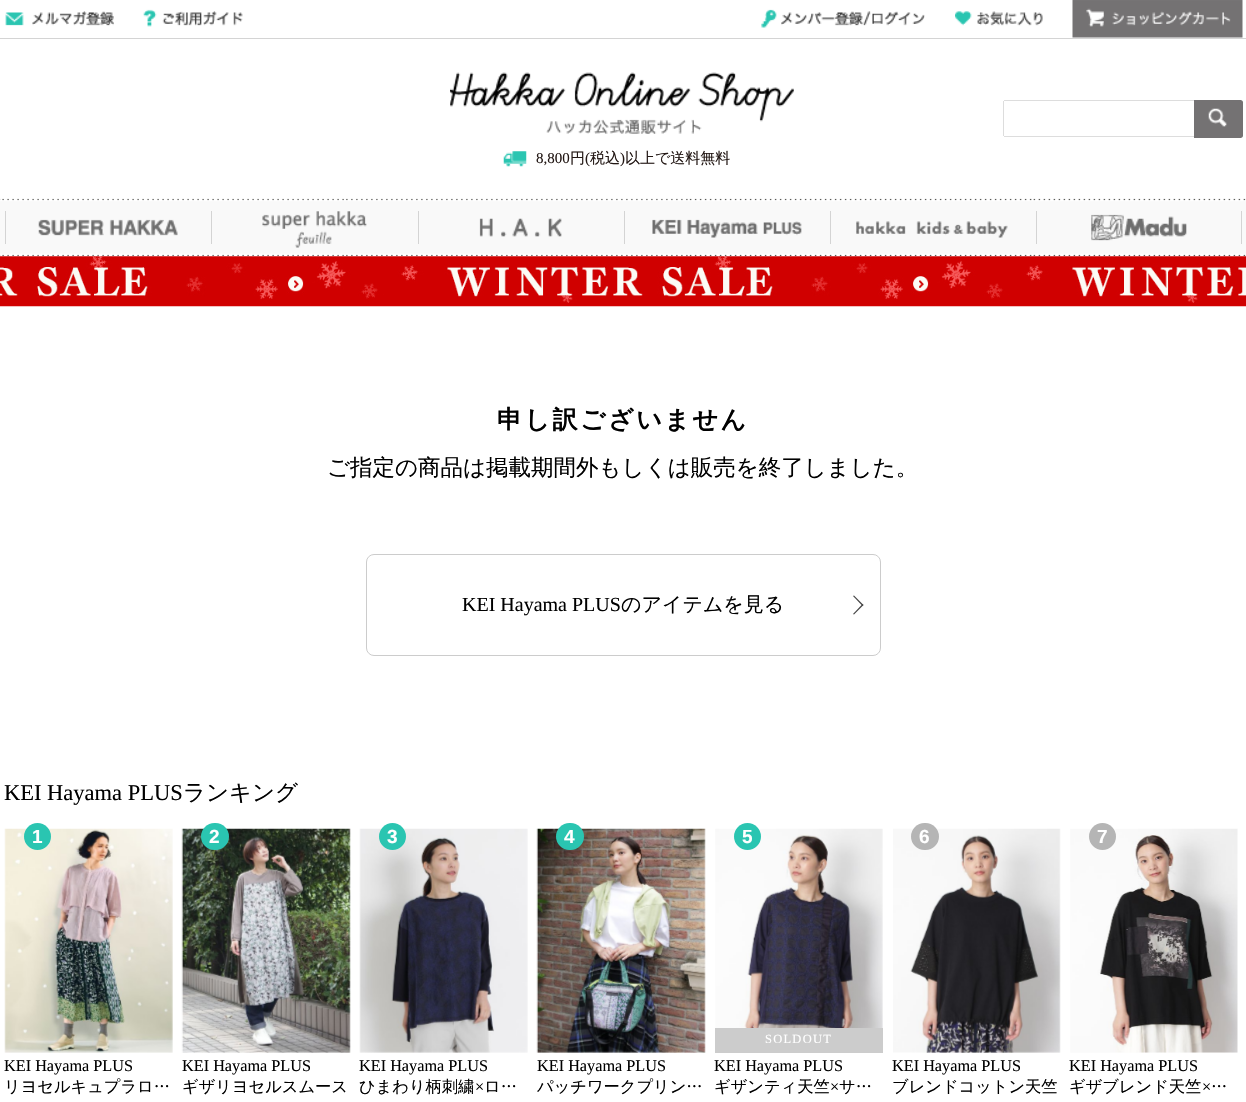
void draw(SkCanvas* canvas) {
    SkPaint paint;
    paint.setAntiAlias(true);
    auto spacedText = [&](const char* s, float x, float y, const SkFont& font, const SkPaint& ink, float letter, float word) {
        std::vector<SkGlyphID> glyphs(font.countText(s, strlen(s), SkTextEncoding::kUTF8));
        std::vector<float> xs(glyphs.size());
        font.textToGlyphs(s, strlen(s), SkTextEncoding::kUTF8, glyphs);
        font.getXPos(glyphs, xs, x);
        float extra = 0;
        for (size_t i = 0; i < glyphs.size(); i++) {
            xs[i] += extra;
            extra += letter + word * (glyphs[i] == font.unicharToGlyph(' '));
        }
        canvas->drawTextBlob(SkTextBlob::MakeFromPosHGlyphs(glyphs, xs, y, font), 0, 0, ink);
    };
    canvas->clear(0xFFFFFFFF);
    paint.setColor(0xFFD4D4D4);
    canvas->drawRect(SkRect::MakeXYWH(0, 38, 1246, 1), paint);
    canvas->drawImageRect(SkImages::DeferredFromEncodedData(SkData::MakeFromFileName("img1.png")), SkRect::MakeXYWH(5, 11, 109, 15), SkSamplingOptions());
    canvas->drawImageRect(SkImages::DeferredFromEncodedData(SkData::MakeFromFileName("img2.png")), SkRect::MakeXYWH(143, 9, 100, 18), SkSamplingOptions());
    canvas->drawImageRect(SkImages::DeferredFromEncodedData(SkData::MakeFromFileName("img3.png")), SkRect::MakeXYWH(761, 9, 164, 19), SkSamplingOptions());
    canvas->drawImageRect(SkImages::DeferredFromEncodedData(SkData::MakeFromFileName("img4.png")), SkRect::MakeXYWH(955, 11, 88, 15), SkSamplingOptions());
    canvas->drawImageRect(SkImages::DeferredFromEncodedData(SkData::MakeFromFileName("img5.png")), SkRect::MakeXYWH(1072, 0, 171, 38), SkSamplingOptions());
    canvas->drawImageRect(SkImages::DeferredFromEncodedData(SkData::MakeFromFileName("img6.png")), SkRect::MakeXYWH(450, 72, 344, 62), SkSamplingOptions());
    paint.setColor(0xFFDDDDDD);
    canvas->drawRect(SkRect::MakeXYWH(1004, 100, 190, 1), paint);
    canvas->drawRect(SkRect::MakeXYWH(1004, 136, 190, 1), paint);
    canvas->drawRect(SkRect::MakeXYWH(1003, 101, 1, 35), paint);
    paint.setColor(0xFF747273);
    canvas->drawPath(SkPathBuilder().moveTo(1194, 100).lineTo(1240.5f, 100).cubicTo(1242, 100, 1243, 101, 1243, 102.5f).lineTo(1243, 135.5f).cubicTo(1243, 137, 1242, 138, 1240.5f, 138).lineTo(1194, 138).close().detach(), paint);
    canvas->drawImageRect(SkImages::DeferredFromEncodedData(SkData::MakeFromFileName("img7.png")), SkRect::MakeXYWH(1208, 108, 19, 19), SkSamplingOptions());
    canvas->drawRect(SkRect::MakeXYWH(1240, 100, 1, 1), paint);
    canvas->drawImageRect(SkImages::DeferredFromEncodedData(SkData::MakeFromFileName("img8.png")), SkRect::MakeXYWH(503, 151, 24, 16), SkSamplingOptions());
    SkFont font1(fontMgr->matchFamilyStyle("Liberation Serif", SkFontStyle::Normal()), 15);
    font1.setSubpixel(true);
    paint.setColor(0xFF231815);
    canvas->drawString("8,800", 536, 163, font1, paint);
    SkFont font2(fontMgr->matchFamilyStyle("WenQuanYi Zen Hei", SkFontStyle(500, SkFontStyle::kNormal_Width, SkFontStyle::kUpright_Slant)), 15);
    font2.setSubpixel(true);
    canvas->drawString("円", 570, 163, font2, paint);
    canvas->drawString("(", 585, 163, font1, paint);
    canvas->drawString("税込", 590, 163, font2, paint);
    canvas->drawString(")", 620, 163, font1, paint);
    canvas->drawString("以上で送料無料", 625, 163, font2, paint);
    canvas->drawImageRect(SkImages::DeferredFromEncodedData(SkData::MakeFromFileName("img9.png")), SkRect::MakeXYWH(0, 198, 1246, 59), SkSamplingOptions());
    paint.setColor(0xFFD4D4D4);
    canvas->drawRect(SkRect::MakeXYWH(5, 211, 1, 33), paint);
    canvas->drawImageRect(SkImages::DeferredFromEncodedData(SkData::MakeFromFileName("img10.png")), SkRect::MakeXYWH(38, 219, 140, 17), SkSamplingOptions());
    canvas->drawRect(SkRect::MakeXYWH(211, 211, 1, 33), paint);
    canvas->drawImageRect(SkImages::DeferredFromEncodedData(SkData::MakeFromFileName("img11.png")), SkRect::MakeXYWH(262, 211, 105, 37), SkSamplingOptions());
    canvas->drawRect(SkRect::MakeXYWH(418, 211, 1, 33), paint);
    canvas->drawImageRect(SkImages::DeferredFromEncodedData(SkData::MakeFromFileName("img12.png")), SkRect::MakeXYWH(479, 218, 83, 19), SkSamplingOptions());
    canvas->drawRect(SkRect::MakeXYWH(624, 211, 1, 33), paint);
    canvas->drawImageRect(SkImages::DeferredFromEncodedData(SkData::MakeFromFileName("img13.png")), SkRect::MakeXYWH(652, 219, 150, 19), SkSamplingOptions());
    canvas->drawRect(SkRect::MakeXYWH(830, 211, 1, 33), paint);
    canvas->drawImageRect(SkImages::DeferredFromEncodedData(SkData::MakeFromFileName("img14.png")), SkRect::MakeXYWH(856, 221, 152, 17), SkSamplingOptions());
    canvas->drawRect(SkRect::MakeXYWH(1036, 211, 1, 33), paint);
    canvas->drawImageRect(SkImages::DeferredFromEncodedData(SkData::MakeFromFileName("img15.png")), SkRect::MakeXYWH(1091, 214, 96, 27), SkSamplingOptions());
    canvas->drawRect(SkRect::MakeXYWH(1241, 211, 1, 33), paint);
    canvas->drawImageRect(SkImages::DeferredFromEncodedData(SkData::MakeFromFileName("img16.png")), SkRect::MakeXYWH(0, 256, 1246, 51), SkSamplingOptions());
    SkFont font3(fontMgr->matchFamilyStyle("WenQuanYi Zen Hei", SkFontStyle::Bold()), 25);
    font3.setSubpixel(true);
    paint.setColor(0xFF000000);
    spacedText("申し訳ございません", 497, 428, font3, paint, 2.5f, 0);
    SkFont font4(fontMgr->matchFamilyStyle("WenQuanYi Zen Hei", SkFontStyle(500, SkFontStyle::kNormal_Width, SkFontStyle::kUpright_Slant)), 22.5f);
    font4.setSubpixel(true);
    canvas->drawString("ご指定の商品は掲載期間外もしくは販売を終了しました。", 327, 475, font4, paint);
    paint.setStyle(SkPaint::kStroke_Style);
    paint.setStrokeWidth(1);
    paint.setColor(0xFFCCCCCC);
    canvas->drawRoundRect(SkRect::MakeXYWH(366.5f, 554.5f, 514, 101), 7.5f, 7.5f, paint);
    SkFont font5(fontMgr->matchFamilyStyle("Liberation Serif", SkFontStyle::Normal()), 20);
    font5.setSubpixel(true);
    paint.setStyle(SkPaint::kFill_Style);
    paint.setColor(0xFF000000);
    canvas->drawString("KEI Hayama PLUS", 462, 611, font5, paint);
    SkFont font6(fontMgr->matchFamilyStyle("WenQuanYi Zen Hei", SkFontStyle(500, SkFontStyle::kNormal_Width, SkFontStyle::kUpright_Slant)), 20);
    font6.setSubpixel(true);
    canvas->drawString("のアイテムを見る", 621, 611, font6, paint);
    paint.setColor(0xFF444444);
    canvas->drawPath(SkPathBuilder().moveTo(854, 595.5f).lineTo(863.5f, 605).lineTo(862.5f, 606).lineTo(853, 596).close().detach(), paint);
    canvas->drawPath(SkPathBuilder().moveTo(862.5f, 604).lineTo(863.5f, 605).lineTo(854, 614.5f).lineTo(853, 614).close().detach(), paint);
    SkFont font7(fontMgr->matchFamilyStyle("Liberation Serif", SkFontStyle::Normal()), 22.5f);
    font7.setSubpixel(true);
    paint.setColor(0xFF000000);
    canvas->drawString("KEI Hayama PLUS", 4, 800, font7, paint);
    canvas->drawString("ランキング", 183, 800, font4, paint);
    canvas->drawImageRect(SkImages::DeferredFromEncodedData(SkData::MakeFromFileName("img17.png")), SkRect::MakeXYWH(4, 828, 169, 225), SkSamplingOptions());
    paint.setColor(0xFF2AC5B1);
    canvas->drawCircle(37.5f, 836.5f, 13.5f, paint);
    SkFont font8(fontMgr->matchFamilyStyle("Liberation Sans", SkFontStyle::Bold()), 19);
    font8.setSubpixel(true);
    paint.setColor(0xFFFFFFFF);
    canvas->drawString("1", 32, 843, font8, paint);
    SkFont font9(fontMgr->matchFamilyStyle("Liberation Serif", SkFontStyle::Normal()), 16.25f);
    font9.setSubpixel(true);
    paint.setColor(0xFF000000);
    canvas->drawString("KEI Hayama PLUS", 4, 1071, font9, paint);
    SkFont font10(fontMgr->matchFamilyStyle("WenQuanYi Zen Hei", SkFontStyle(500, SkFontStyle::kNormal_Width, SkFontStyle::kUpright_Slant)), 16.25f);
    font10.setSubpixel(true);
    spacedText("リヨセルキュプラロ…", 4, 1092, font10, paint, 0, -1);
    canvas->drawImageRect(SkImages::DeferredFromEncodedData(SkData::MakeFromFileName("img18.png")), SkRect::MakeXYWH(181, 828, 170, 225), SkSamplingOptions());
    paint.setColor(0xFF2AC5B1);
    canvas->drawRoundRect(SkRect::MakeXYWH(201, 823, 28, 27), 13.5f, 13.5f, paint);
    paint.setColor(0xFFFFFFFF);
    canvas->drawString("2", 209, 843, font8, paint);
    paint.setColor(0xFF000000);
    canvas->drawString("KEI Hayama PLUS", 182, 1071, font9, paint);
    canvas->drawString("ギザリヨセルスムース", 182, 1092, font10, paint);
    canvas->drawImageRect(SkImages::DeferredFromEncodedData(SkData::MakeFromFileName("img19.png")), SkRect::MakeXYWH(359, 828, 169, 225), SkSamplingOptions());
    paint.setColor(0xFF2AC5B1);
    canvas->drawCircle(392.5f, 836.5f, 13.5f, paint);
    paint.setColor(0xFFFFFFFF);
    canvas->drawString("3", 387, 843, font8, paint);
    paint.setColor(0xFF000000);
    canvas->drawString("KEI Hayama PLUS", 359, 1071, font9, paint);
    canvas->drawString("ひまわり柄刺繍", 359, 1092, font10, paint);
    canvas->drawString("×", 475, 1092, font9, paint);
    canvas->drawString("ロ…", 484, 1092, font10, paint);
    canvas->drawImageRect(SkImages::DeferredFromEncodedData(SkData::MakeFromFileName("img20.png")), SkRect::MakeXYWH(536, 828, 170, 225), SkSamplingOptions());
    paint.setColor(0xFF2AC5B1);
    canvas->drawRoundRect(SkRect::MakeXYWH(556, 823, 28, 27), 13.5f, 13.5f, paint);
    paint.setColor(0xFFFFFFFF);
    canvas->drawString("4", 564, 843, font8, paint);
    paint.setColor(0xFF000000);
    canvas->drawString("KEI Hayama PLUS", 537, 1071, font9, paint);
    spacedText("パッチワークプリン…", 537, 1092, font10, paint, 0, -1);
    canvas->drawImageRect(SkImages::DeferredFromEncodedData(SkData::MakeFromFileName("img21.png")), SkRect::MakeXYWH(715, 828, 168, 200), SkSamplingOptions());
    paint.setColor(0xFF2AC5B1);
    canvas->drawCircle(747.5f, 836.5f, 13.5f, paint);
    paint.setColor(0xFFFFFFFF);
    canvas->drawString("5", 742, 843, font8, paint);
    paint.setColor(0xFFCCCCCC);
    canvas->drawRect(SkRect::MakeXYWH(715, 1028, 168, 25), paint);
    SkFont font11(fontMgr->matchFamilyStyle("Liberation Serif", SkFontStyle::Normal()), 12.5f);
    font11.setSubpixel(true);
    paint.setColor(0xFFFFFFFF);
    spacedText("SOLDOUT", 765, 1043, font11, paint, 1.25f, 0);
    paint.setColor(0xFF000000);
    canvas->drawString("KEI Hayama PLUS", 714, 1071, font9, paint);
    canvas->drawString("ギザンティ天竺", 714, 1092, font10, paint);
    canvas->drawString("×", 830, 1092, font9, paint);
    canvas->drawString("サ…", 839, 1092, font10, paint);
    canvas->drawImageRect(SkImages::DeferredFromEncodedData(SkData::MakeFromFileName("img22.png")), SkRect::MakeXYWH(893, 828, 168, 225), SkSamplingOptions());
    paint.setColor(0xFFB5B5B5);
    canvas->drawRoundRect(SkRect::MakeXYWH(911, 823, 28, 27), 13.5f, 13.5f, paint);
    paint.setColor(0xFFFFFFFF);
    canvas->drawString("6", 919, 843, font8, paint);
    paint.setColor(0xFF000000);
    canvas->drawString("KEI Hayama PLUS", 892, 1071, font9, paint);
    canvas->drawString("ブレンドコットン天竺", 892, 1092, font10, paint);
    canvas->drawImageRect(SkImages::DeferredFromEncodedData(SkData::MakeFromFileName("img23.png")), SkRect::MakeXYWH(1070, 828, 168, 225), SkSamplingOptions());
    paint.setColor(0xFFB5B5B5);
    canvas->drawCircle(1102.5f, 836.5f, 13.5f, paint);
    paint.setColor(0xFFFFFFFF);
    canvas->drawString("7", 1097, 843, font8, paint);
    paint.setColor(0xFF000000);
    canvas->drawString("KEI Hayama PLUS", 1069, 1071, font9, paint);
    canvas->drawString("ギザブレンド天竺", 1069, 1092, font10, paint);
    canvas->drawString("×", 1202, 1092, font9, paint);
    canvas->drawString("…", 1211, 1092, font10, paint);
}
